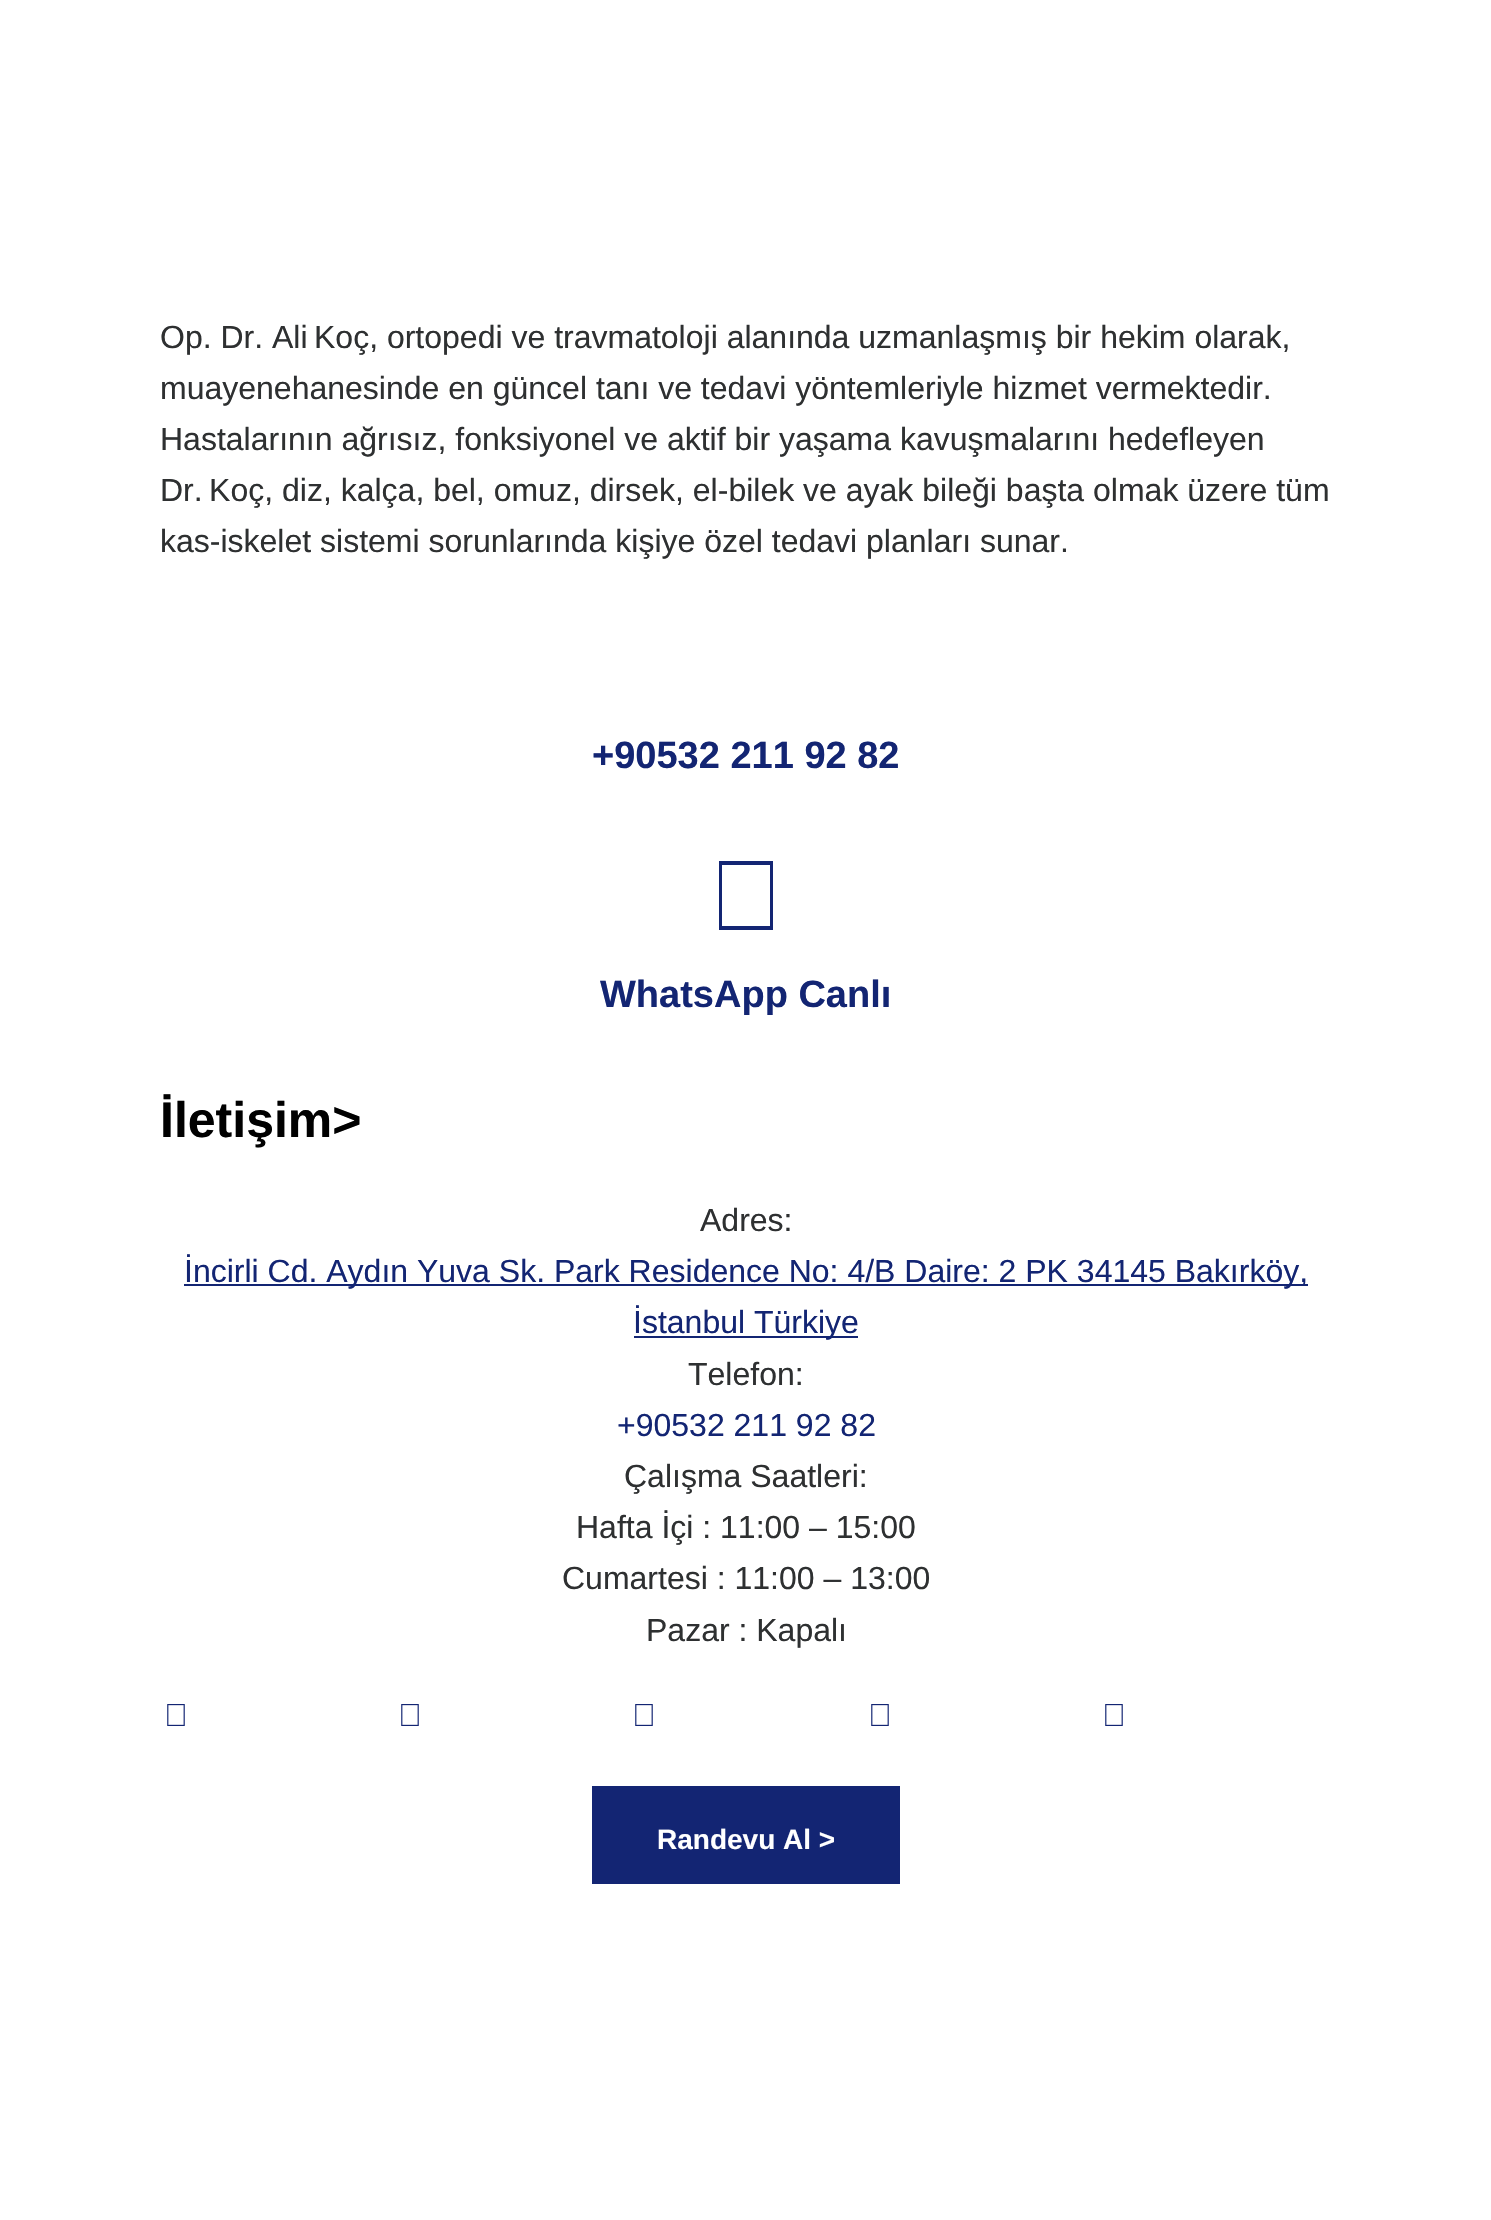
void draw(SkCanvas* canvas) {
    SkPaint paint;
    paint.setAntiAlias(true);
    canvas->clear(0xFFFFFFFF);
    SkFont font1(fontMgr->matchFamilyStyle("Liberation Sans", SkFontStyle::Normal()), 32);
    font1.setSubpixel(true);
    paint.setColor(0xFF2E3031);
    canvas->drawString("Op. Dr. Ali Koç, ortopedi ve travmatoloji alanında uzmanlaşmış bir hekim olarak,", 160, 348, font1, paint);
    canvas->drawString("muayenehanesinde en güncel tanı ve tedavi yöntemleriyle hizmet vermektedir.", 160, 399, font1, paint);
    canvas->drawString("Hastalarının ağrısız, fonksiyonel ve aktif bir yaşama kavuşmalarını hedefleyen", 160, 450, font1, paint);
    canvas->drawString("Dr. Koç, diz, kalça, bel, omuz, dirsek, el-bilek ve ayak bileği başta olmak üzere tüm", 160, 501, font1, paint);
    canvas->drawString("kas-iskelet sistemi sorunlarında kişiye özel tedavi planları sunar.", 160, 552, font1, paint);
    SkFont font2(fontMgr->matchFamilyStyle("Liberation Sans", SkFontStyle::Bold()), 38);
    font2.setSubpixel(true);
    paint.setColor(0xFF132573);
    canvas->drawString("+90532 211 92 82", 592, 768, font2, paint);
    canvas->drawPath(SkPathBuilder().moveTo(719, 861).lineTo(773, 861).lineTo(773, 930).lineTo(719, 930).close().moveTo(722, 865).lineTo(722, 926).lineTo(770, 926).lineTo(770, 865).close().detach(), paint);
    canvas->drawString("WhatsApp Canlı", 600, 1007, font2, paint);
    SkFont font3(fontMgr->matchFamilyStyle("Liberation Sans", SkFontStyle::Bold()), 50);
    font3.setSubpixel(true);
    paint.setColor(0xFF000000);
    canvas->drawString("İletişim>", 160, 1137, font3, paint);
    paint.setColor(0xFF2E3031);
    canvas->drawString("Adres:", 700, 1231, font1, paint);
    paint.setColor(0xFF132573);
    canvas->drawRect(SkRect::MakeXYWH(184, 1284, 1124, 2), paint);
    canvas->drawString("İncirli Cd. Aydın Yuva Sk. Park Residence No: 4/B Daire: 2 PK 34145 Bakırköy,", 184, 1282, font1, paint);
    canvas->drawRect(SkRect::MakeXYWH(634, 1336, 224, 2), paint);
    canvas->drawString("İstanbul Türkiye", 633, 1333, font1, paint);
    paint.setColor(0xFF2E3031);
    canvas->drawString("Telefon:", 688, 1385, font1, paint);
    paint.setColor(0xFF132573);
    canvas->drawString("+90532 211 92 82", 617, 1436, font1, paint);
    paint.setColor(0xFF2E3031);
    canvas->drawString("Çalışma Saatleri:", 624, 1487, font1, paint);
    canvas->drawString("Hafta İçi : 11:00 – 15:00", 576, 1538, font1, paint);
    canvas->drawString("Cumartesi : 11:00 – 13:00", 562, 1589, font1, paint);
    canvas->drawString("Pazar : Kapalı", 646, 1641, font1, paint);
    canvas->drawImageRect(SkImages::DeferredFromEncodedData(SkData::MakeFromFileName("img1.png")), SkRect::MakeXYWH(167, 1704, 18, 22), SkSamplingOptions());
    canvas->drawImageRect(SkImages::DeferredFromEncodedData(SkData::MakeFromFileName("img1.png")), SkRect::MakeXYWH(401, 1704, 18, 22), SkSamplingOptions());
    canvas->drawImageRect(SkImages::DeferredFromEncodedData(SkData::MakeFromFileName("img1.png")), SkRect::MakeXYWH(635, 1704, 18, 22), SkSamplingOptions());
    canvas->drawImageRect(SkImages::DeferredFromEncodedData(SkData::MakeFromFileName("img1.png")), SkRect::MakeXYWH(871, 1704, 18, 22), SkSamplingOptions());
    canvas->drawImageRect(SkImages::DeferredFromEncodedData(SkData::MakeFromFileName("img1.png")), SkRect::MakeXYWH(1105, 1704, 18, 22), SkSamplingOptions());
    paint.setColor(0xFF132573);
    canvas->drawRect(SkRect::MakeXYWH(596, 1790, 300, 88), paint);
    canvas->drawRect(SkRect::MakeXYWH(592, 1786, 308, 4), paint);
    canvas->drawRect(SkRect::MakeXYWH(896, 1786, 4, 98), paint);
    canvas->drawRect(SkRect::MakeXYWH(592, 1878, 308, 6), paint);
    canvas->drawRect(SkRect::MakeXYWH(592, 1786, 4, 98), paint);
    SkFont font4(fontMgr->matchFamilyStyle("Liberation Sans", SkFontStyle::Bold()), 28);
    font4.setSubpixel(true);
    paint.setColor(0xFFFFFFFF);
    canvas->drawString("Randevu Al >", 657, 1849, font4, paint);
}
